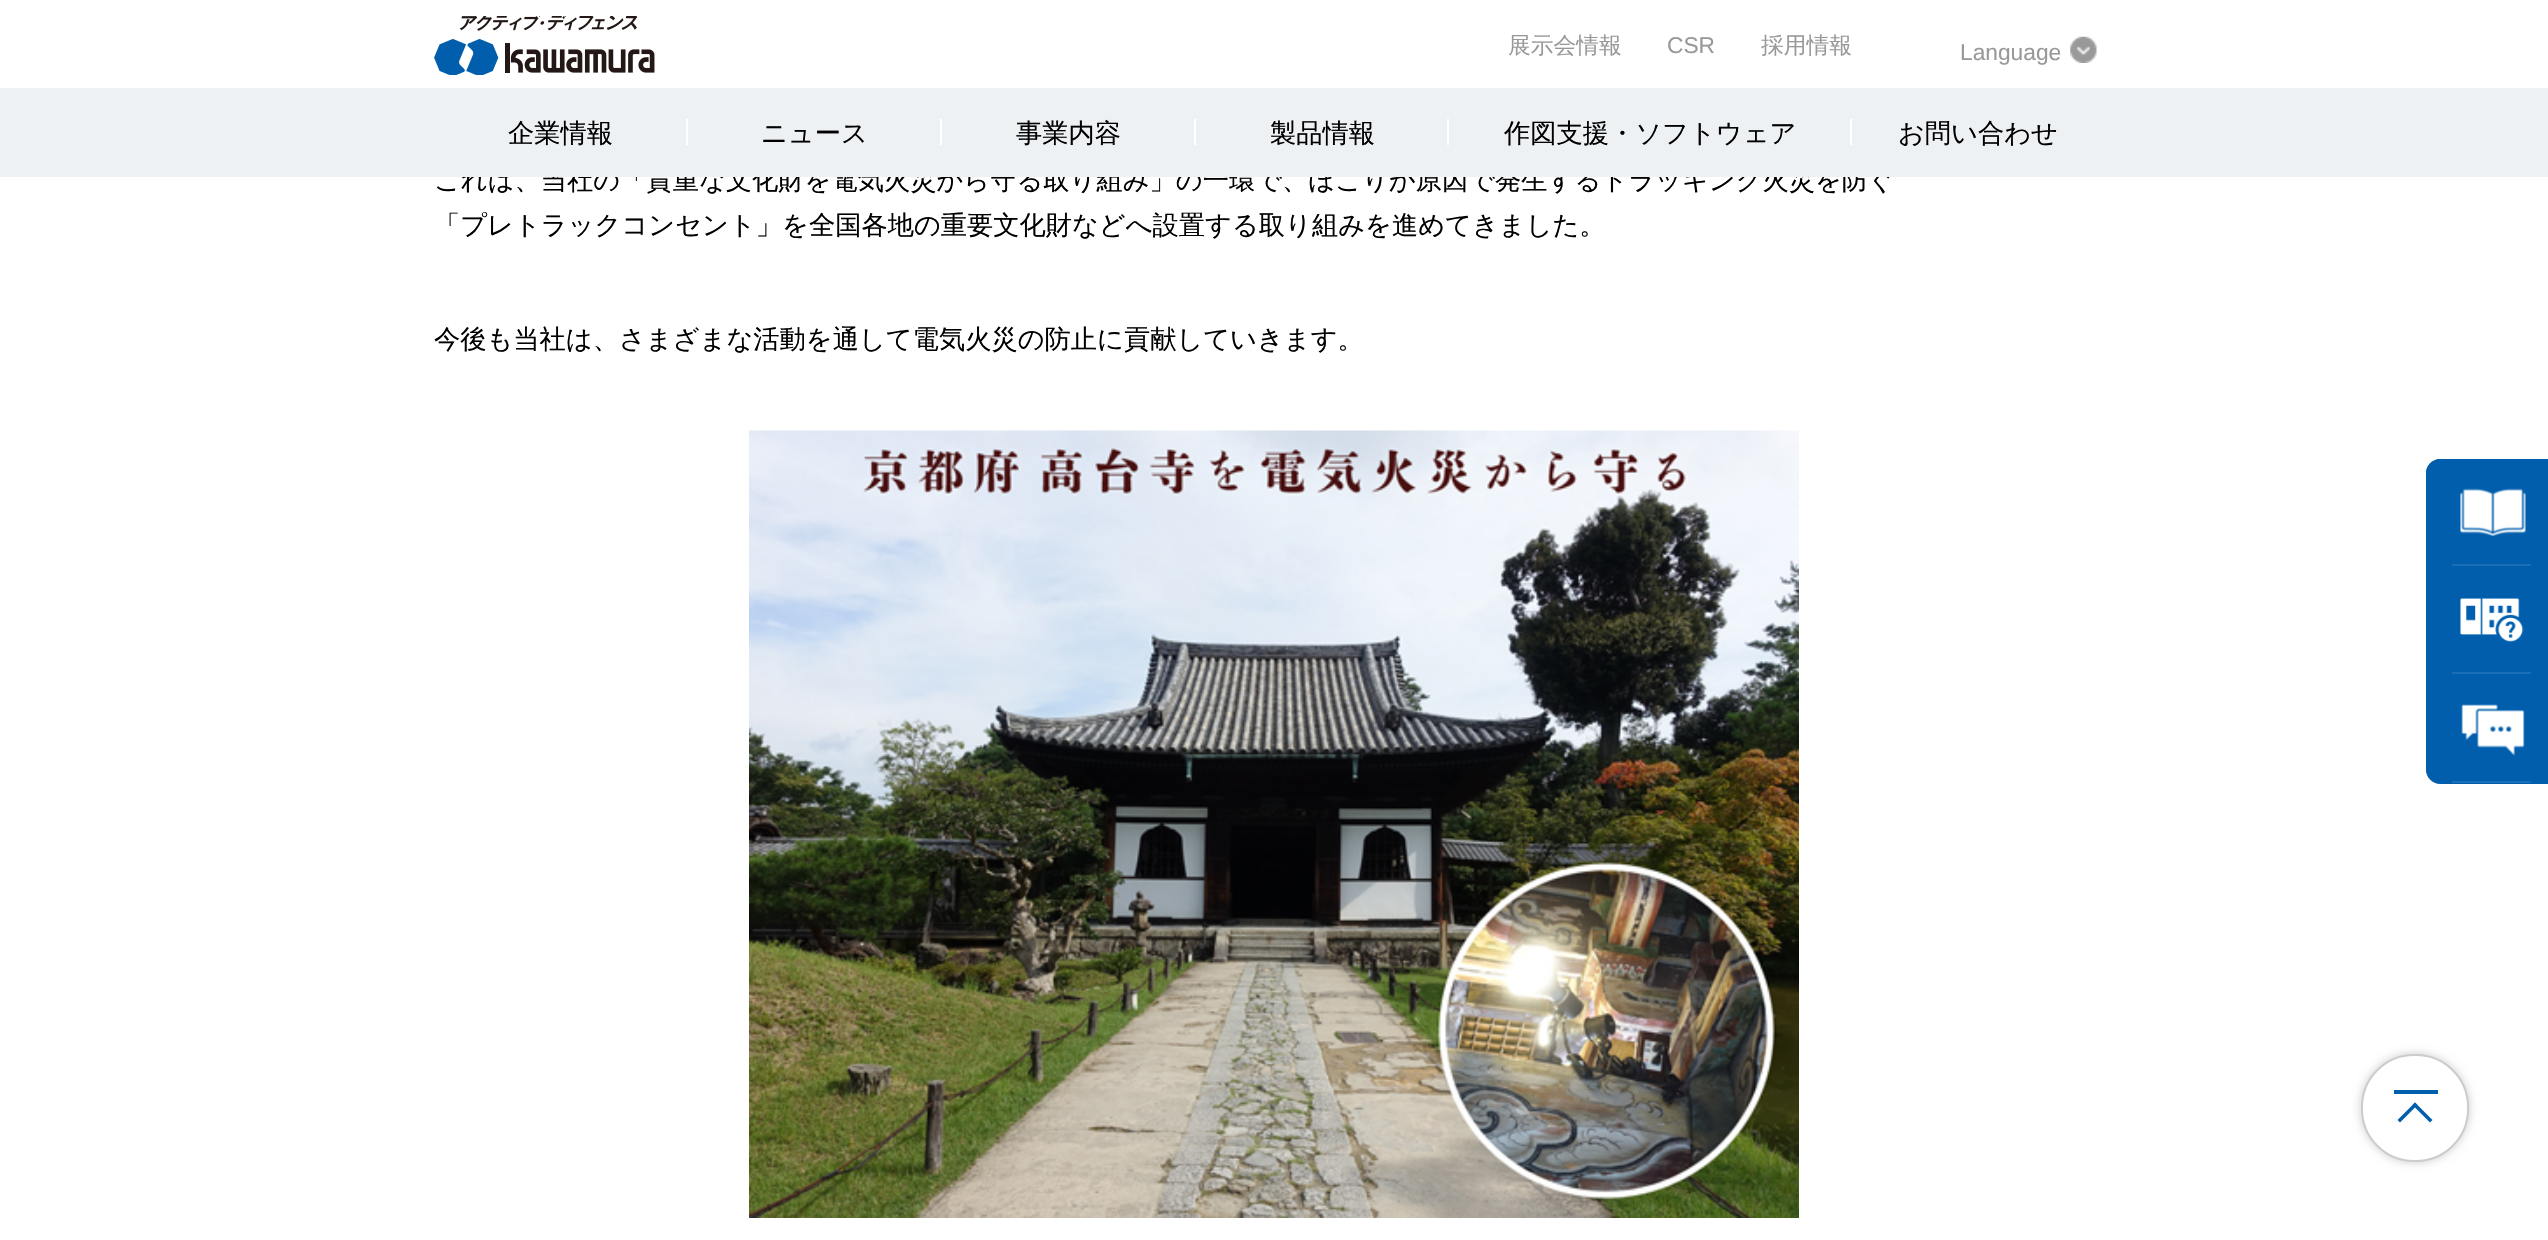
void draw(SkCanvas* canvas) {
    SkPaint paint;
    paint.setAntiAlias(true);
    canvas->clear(0xFFFFFFFF);
    canvas->drawImageRect(SkImages::DeferredFromEncodedData(SkData::MakeFromFileName("img1.png")), SkRect::MakeXYWH(434, 16, 221, 59), SkSamplingOptions());
    SkFont font1(fontMgr->matchFamilyStyle("WenQuanYi Zen Hei", SkFontStyle(500, SkFontStyle::kNormal_Width, SkFontStyle::kUpright_Slant)), 22.75f);
    font1.setSubpixel(true);
    paint.setColor(0xFF999999);
    canvas->drawString("展示会情報", 1508, 53, font1, paint);
    SkFont font2(fontMgr->matchFamilyStyle("Liberation Sans", SkFontStyle::Normal()), 22.75f);
    font2.setSubpixel(true);
    canvas->drawString("CSR", 1667, 53, font2, paint);
    canvas->drawString("採用情報", 1761, 53, font1, paint);
    canvas->drawImageRect(SkImages::DeferredFromEncodedData(SkData::MakeFromFileName("img2.png")), SkRect::MakeXYWH(2070, 36, 27, 27), SkSamplingOptions());
    canvas->drawString("Language", 1960, 60, font2, paint);
    SkFont font3(fontMgr->matchFamilyStyle("WenQuanYi Zen Hei", SkFontStyle(500, SkFontStyle::kNormal_Width, SkFontStyle::kUpright_Slant)), 26.25f);
    font3.setSubpixel(true);
    paint.setColor(0xFF000000);
    canvas->drawString("これは、当社の「貴重な文化財を電気火災から守る取り組み」の一環で、ほこりが原因で発生するトラッキング火災を防ぐ", 434, 189, font3, paint);
    paint.setColor(0xFFEEF1F4);
    canvas->drawRect(SkRect::MakeXYWH(0, 88, 2548, 89), paint);
    paint.setColor(0xFF000000);
    canvas->drawString("企業情報", 508, 142, font3, paint);
    paint.setColor(0xFFFFFFFF);
    canvas->drawRect(SkRect::MakeXYWH(686, 119, 2, 26), paint);
    paint.setColor(0xFF000000);
    canvas->drawString("ニュース", 761, 142, font3, paint);
    paint.setColor(0xFFFFFFFF);
    canvas->drawRect(SkRect::MakeXYWH(940, 119, 2, 26), paint);
    paint.setColor(0xFF000000);
    canvas->drawString("事業内容", 1016, 142, font3, paint);
    paint.setColor(0xFFFFFFFF);
    canvas->drawRect(SkRect::MakeXYWH(1194, 119, 2, 26), paint);
    paint.setColor(0xFF000000);
    canvas->drawString("製品情報", 1270, 142, font3, paint);
    paint.setColor(0xFFFFFFFF);
    canvas->drawRect(SkRect::MakeXYWH(1447, 119, 2, 26), paint);
    paint.setColor(0xFF000000);
    canvas->drawString("作図支援・ソフトウェア", 1504, 142, font3, paint);
    paint.setColor(0xFFFFFFFF);
    canvas->drawRect(SkRect::MakeXYWH(1850, 119, 2, 26), paint);
    paint.setColor(0xFF000000);
    canvas->drawString("お問い合わせ", 1898, 142, font3, paint);
    canvas->drawString("「プレトラックコンセント」を全国各地の重要文化財などへ設置する取り組みを進めてきました。", 434, 234, font3, paint);
    canvas->drawString("今後も当社は、さまざまな活動を通して電気火災の防止に貢献していきます。", 434, 348, font3, paint);
    canvas->drawImageRect(SkImages::DeferredFromEncodedData(SkData::MakeFromFileName("img3.png")), SkRect::MakeXYWH(749, 430, 1050, 788), SkSamplingOptions());
    paint.setColor(0xFF005EAD);
    canvas->drawPath(SkPathBuilder().moveTo(2440, 459).lineTo(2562, 459).lineTo(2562, 782).lineTo(2440, 782).cubicTo(2432.5f, 782, 2426, 775.5f, 2426, 768).lineTo(2426, 473).cubicTo(2426, 465.5f, 2432.5f, 459, 2440, 459).close().detach(), paint);
    canvas->drawPath(SkPathBuilder().moveTo(2440, 459).lineTo(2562, 459).lineTo(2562, 567).lineTo(2426, 567).lineTo(2426, 473).cubicTo(2426, 465.5f, 2432.5f, 459, 2440, 459).close().detach(), paint);
    canvas->drawImageRect(SkImages::DeferredFromEncodedData(SkData::MakeFromFileName("img4.png")), SkRect::MakeXYWH(2460, 488, 66, 48), SkSamplingOptions());
    paint.setColor(0xFF1A6EB5);
    canvas->drawRect(SkRect::MakeXYWH(2452, 564, 79, 2), paint);
    canvas->drawImageRect(SkImages::DeferredFromEncodedData(SkData::MakeFromFileName("img5.png")), SkRect::MakeXYWH(2460, 598, 64, 44), SkSamplingOptions());
    canvas->drawRect(SkRect::MakeXYWH(2452, 672, 79, 2), paint);
    paint.setColor(0xFF005EAD);
    canvas->drawPath(SkPathBuilder().moveTo(2426, 676).lineTo(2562, 676).lineTo(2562, 784).lineTo(2440, 784).cubicTo(2432.5f, 784, 2426, 777.5f, 2426, 770).close().detach(), paint);
    canvas->drawImageRect(SkImages::DeferredFromEncodedData(SkData::MakeFromFileName("img6.png")), SkRect::MakeXYWH(2461, 704, 64, 52), SkSamplingOptions());
    paint.setColor(0xFF1A6EB5);
    canvas->drawRect(SkRect::MakeXYWH(2452, 781, 79, 2), paint);
    paint.setColor(0x33000000);
    paint.setMaskFilter(SkMaskFilter::MakeBlur(kNormal_SkBlurStyle, 5));
    canvas->drawRoundRect(SkRect::MakeXYWH(2361, 1054, 108, 108), 53, 53, paint);
    paint.setMaskFilter(nullptr);
    paint.setColor(0xFFFFFFFF);
    canvas->drawRoundRect(SkRect::MakeXYWH(2362, 1055, 106, 106), 52, 52, paint);
    paint.setStyle(SkPaint::kStroke_Style);
    paint.setStrokeWidth(2);
    paint.setColor(0xFFCCCCCC);
    canvas->drawRoundRect(SkRect::MakeXYWH(2362, 1055, 106, 106), 52, 52, paint);
    paint.setStyle(SkPaint::kFill_Style);
    paint.setColor(0xFF005EAD);
    canvas->drawRect(SkRect::MakeXYWH(2394, 1090, 44, 4), paint);
    canvas->drawPath(SkPathBuilder().moveTo(2397.5f, 1120).lineTo(2415, 1102.5f).lineTo(2417.5f, 1105).lineTo(2400, 1122.5f).close().detach(), paint);
    canvas->drawPath(SkPathBuilder().moveTo(2412.5f, 1105).lineTo(2415, 1102.5f).lineTo(2432.5f, 1120).lineTo(2430, 1122.5f).close().detach(), paint);
}
